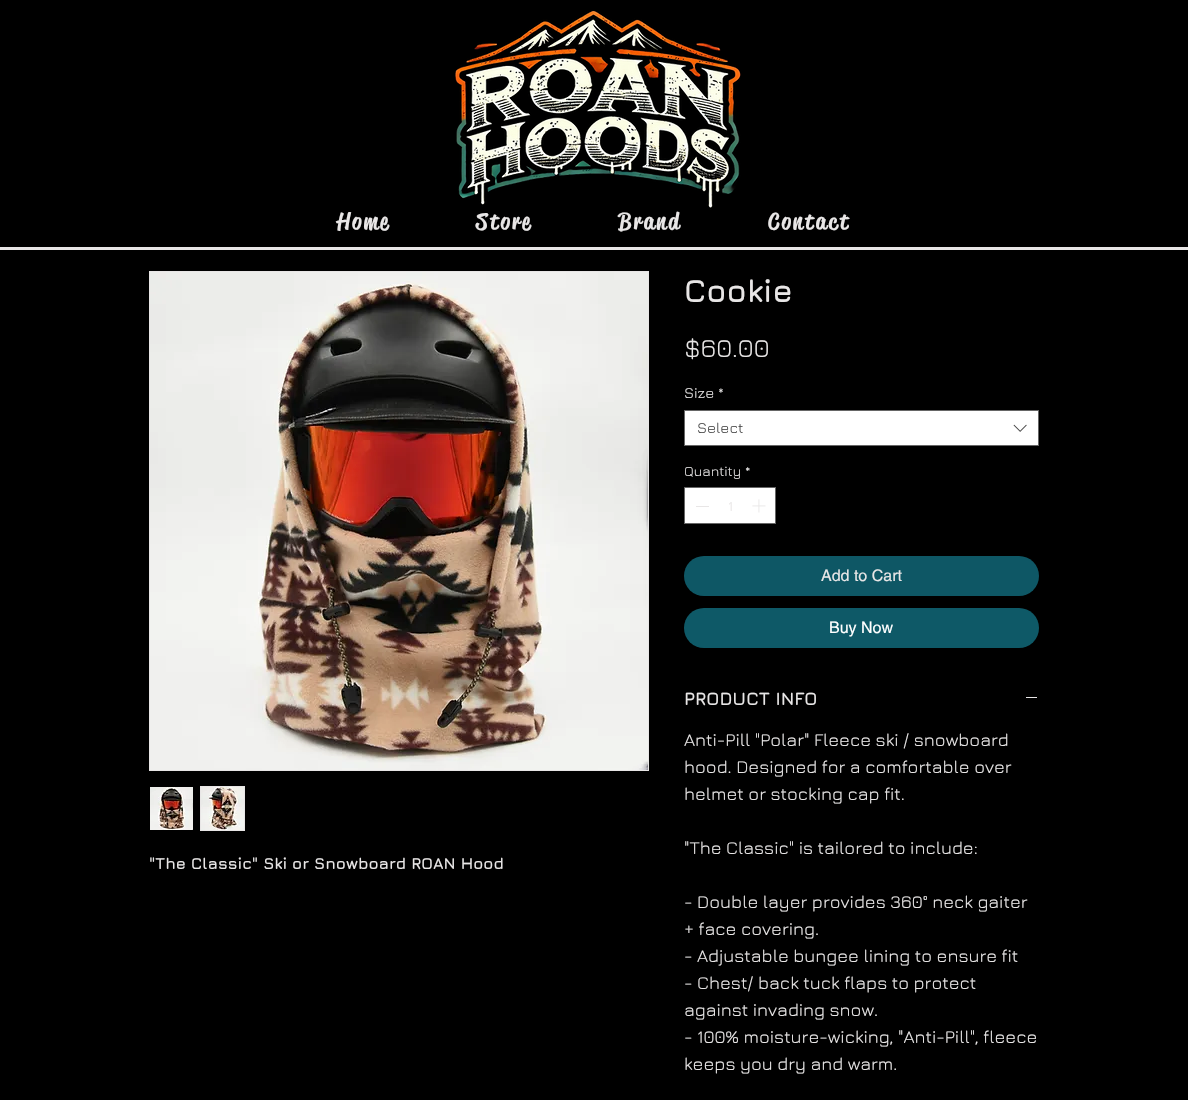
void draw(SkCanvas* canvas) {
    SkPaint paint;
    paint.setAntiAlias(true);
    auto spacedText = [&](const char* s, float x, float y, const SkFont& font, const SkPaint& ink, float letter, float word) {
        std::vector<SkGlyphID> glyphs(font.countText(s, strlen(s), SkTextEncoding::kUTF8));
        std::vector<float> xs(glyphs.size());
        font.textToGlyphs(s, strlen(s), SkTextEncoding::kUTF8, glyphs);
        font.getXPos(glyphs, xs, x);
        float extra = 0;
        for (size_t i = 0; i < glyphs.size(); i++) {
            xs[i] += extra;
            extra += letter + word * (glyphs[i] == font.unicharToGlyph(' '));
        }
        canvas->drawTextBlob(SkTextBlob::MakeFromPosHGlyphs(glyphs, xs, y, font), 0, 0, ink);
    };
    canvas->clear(0xFF000000);
    canvas->drawImageRect(SkImages::DeferredFromEncodedData(SkData::MakeFromFileName("img1.png")), SkRect::MakeXYWH(455, 11, 286, 199), SkSamplingOptions());
    SkFont font1(fontMgr->matchFamilyStyle("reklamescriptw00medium", SkFontStyle(500, SkFontStyle::kNormal_Width, SkFontStyle::kUpright_Slant)), 23);
    font1.setSubpixel(true);
    paint.setColor(0xFFE8E6E6);
    spacedText("Home", 337, 229, font1, paint, 2.25f, 0);
    spacedText("Store", 476, 229, font1, paint, 2.25f, 0);
    spacedText("Brand", 618, 229, font1, paint, 2.25f, 0);
    spacedText("Contact", 768, 229, font1, paint, 2.25f, 0);
    canvas->drawRect(SkRect::MakeXYWH(0, 247, 1188, 3), paint);
    paint.setStyle(SkPaint::kStroke_Style);
    paint.setStrokeWidth(1);
    canvas->drawRect(SkRect::MakeXYWH(149.5f, 271.5f, 499, 499), paint);
    canvas->drawImageRect(SkImages::DeferredFromEncodedData(SkData::MakeFromFileName("img2.png")), SkRect::MakeXYWH(150, 272, 498, 498), SkSamplingOptions());
    canvas->drawImageRect(SkImages::DeferredFromEncodedData(SkData::MakeFromFileName("img3.png")), SkRect::MakeXYWH(150, 787, 43, 43), SkSamplingOptions());
    paint.setStyle(SkPaint::kFill_Style);
    canvas->drawRect(SkRect::MakeXYWH(200, 786, 45, 45), paint);
    canvas->drawImageRect(SkImages::DeferredFromEncodedData(SkData::MakeFromFileName("img4.png")), SkRect::MakeXYWH(201, 787, 43, 43), SkSamplingOptions());
    SkFont font2(fontMgr->matchFamilyStyle("Jura", SkFontStyle::Bold()), 16);
    font2.setSubpixel(true);
    canvas->drawString("\"The Classic\" Ski or Snowboard ROAN Hood", 149, 869, font2, paint);
    SkFont font3(fontMgr->matchFamilyStyle("Jura", SkFontStyle::Bold()), 32);
    font3.setSubpixel(true);
    canvas->drawString("Cookie", 684, 302, font3, paint);
    SkFont font4(fontMgr->matchFamilyStyle("Jura", SkFontStyle::Normal()), 26);
    font4.setSubpixel(true);
    canvas->drawString("$60.00", 684, 357, font4, paint);
    SkFont font5(fontMgr->matchFamilyStyle("Jura", SkFontStyle::Normal()), 15);
    font5.setSubpixel(true);
    canvas->drawString("Size *", 684, 398, font5, paint);
    paint.setColor(0xFFFFFFFF);
    canvas->drawRect(SkRect::MakeXYWH(684.5f, 410.5f, 354, 35), paint);
    paint.setStyle(SkPaint::kStroke_Style);
    paint.setColor(0xFF666666);
    canvas->drawRect(SkRect::MakeXYWH(684.5f, 410.5f, 354, 35), paint);
    paint.setStyle(SkPaint::kFill_Style);
    paint.setColor(0xFF444444);
    canvas->drawString("Select", 697, 433, font5, paint);
    canvas->drawImageRect(SkImages::DeferredFromEncodedData(SkData::MakeFromFileName("img5.png")), SkRect::MakeXYWH(1013, 424, 14, 8), SkSamplingOptions());
    SkFont font6(fontMgr->matchFamilyStyle("Jura", SkFontStyle::Normal()), 14);
    font6.setSubpixel(true);
    paint.setColor(0xFFE8E6E6);
    canvas->drawString("Quantity", 684, 476, font6, paint);
    canvas->drawString("*", 745, 476, font6, paint);
    paint.setColor(0xFFFFFFFF);
    canvas->drawRect(SkRect::MakeXYWH(684.5f, 487.5f, 91, 36), paint);
    paint.setStyle(SkPaint::kStroke_Style);
    paint.setColor(0xFF666666);
    canvas->drawRect(SkRect::MakeXYWH(684.5f, 487.5f, 91, 36), paint);
    paint.setStyle(SkPaint::kFill_Style);
    paint.setColor(0xFFE8E6E6);
    canvas->drawRect(SkRect::MakeXYWH(696, 506, 13, 1), paint);
    canvas->drawString("1", 728, 511, font6, paint);
    canvas->drawImageRect(SkImages::DeferredFromEncodedData(SkData::MakeFromFileName("img6.png")), SkRect::MakeXYWH(752, 499, 14, 14), SkSamplingOptions());
    paint.setColor(0xFF0E5765);
    canvas->drawRoundRect(SkRect::MakeXYWH(684, 556, 355, 40), 20, 20, paint);
    SkFont font7(fontMgr->matchFamilyStyle("helvetica", SkFontStyle::Normal()), 16);
    font7.setSubpixel(true);
    paint.setColor(0xFFE8E6E6);
    canvas->drawString("Add to Cart", 821, 581, font7, paint);
    paint.setColor(0xFF0E5967);
    canvas->drawRoundRect(SkRect::MakeXYWH(684, 608, 355, 40), 20, 20, paint);
    paint.setColor(0xFFFFFFFF);
    canvas->drawString("Buy Now", 829, 633, font7, paint);
    SkFont font8(fontMgr->matchFamilyStyle("Jura", SkFontStyle::Bold()), 18);
    font8.setSubpixel(true);
    paint.setColor(0xFFE8E6E6);
    canvas->drawString("PRODUCT INFO", 684, 705, font8, paint);
    canvas->drawRect(SkRect::MakeXYWH(1026, 697, 11, 1), paint);
    SkFont font9(fontMgr->matchFamilyStyle("Jura", SkFontStyle::Normal()), 18);
    font9.setSubpixel(true);
    canvas->drawString("Anti-Pill \"Polar\" Fleece ski / snowboard", 684, 746, font9, paint);
    canvas->drawString("hood. Designed for a comfortable over", 684, 773, font9, paint);
    canvas->drawString("helmet or stocking cap fit.", 684, 800, font9, paint);
    canvas->drawString("\"The Classic\" is tailored to include:", 684, 854, font9, paint);
    canvas->drawString("- Double layer provides 360° neck gaiter", 684, 908, font9, paint);
    canvas->drawString("+ face covering.", 684, 935, font9, paint);
    canvas->drawString("- Adjustable bungee lining to ensure fit", 684, 962, font9, paint);
    canvas->drawString("- Chest/ back tuck flaps to protect", 684, 989, font9, paint);
    canvas->drawString("against invading snow.", 684, 1016, font9, paint);
    canvas->drawString("- 100% moisture-wicking, \"Anti-Pill\", fleece", 684, 1043, font9, paint);
    canvas->drawString("keeps you dry and warm.", 684, 1070, font9, paint);
}
